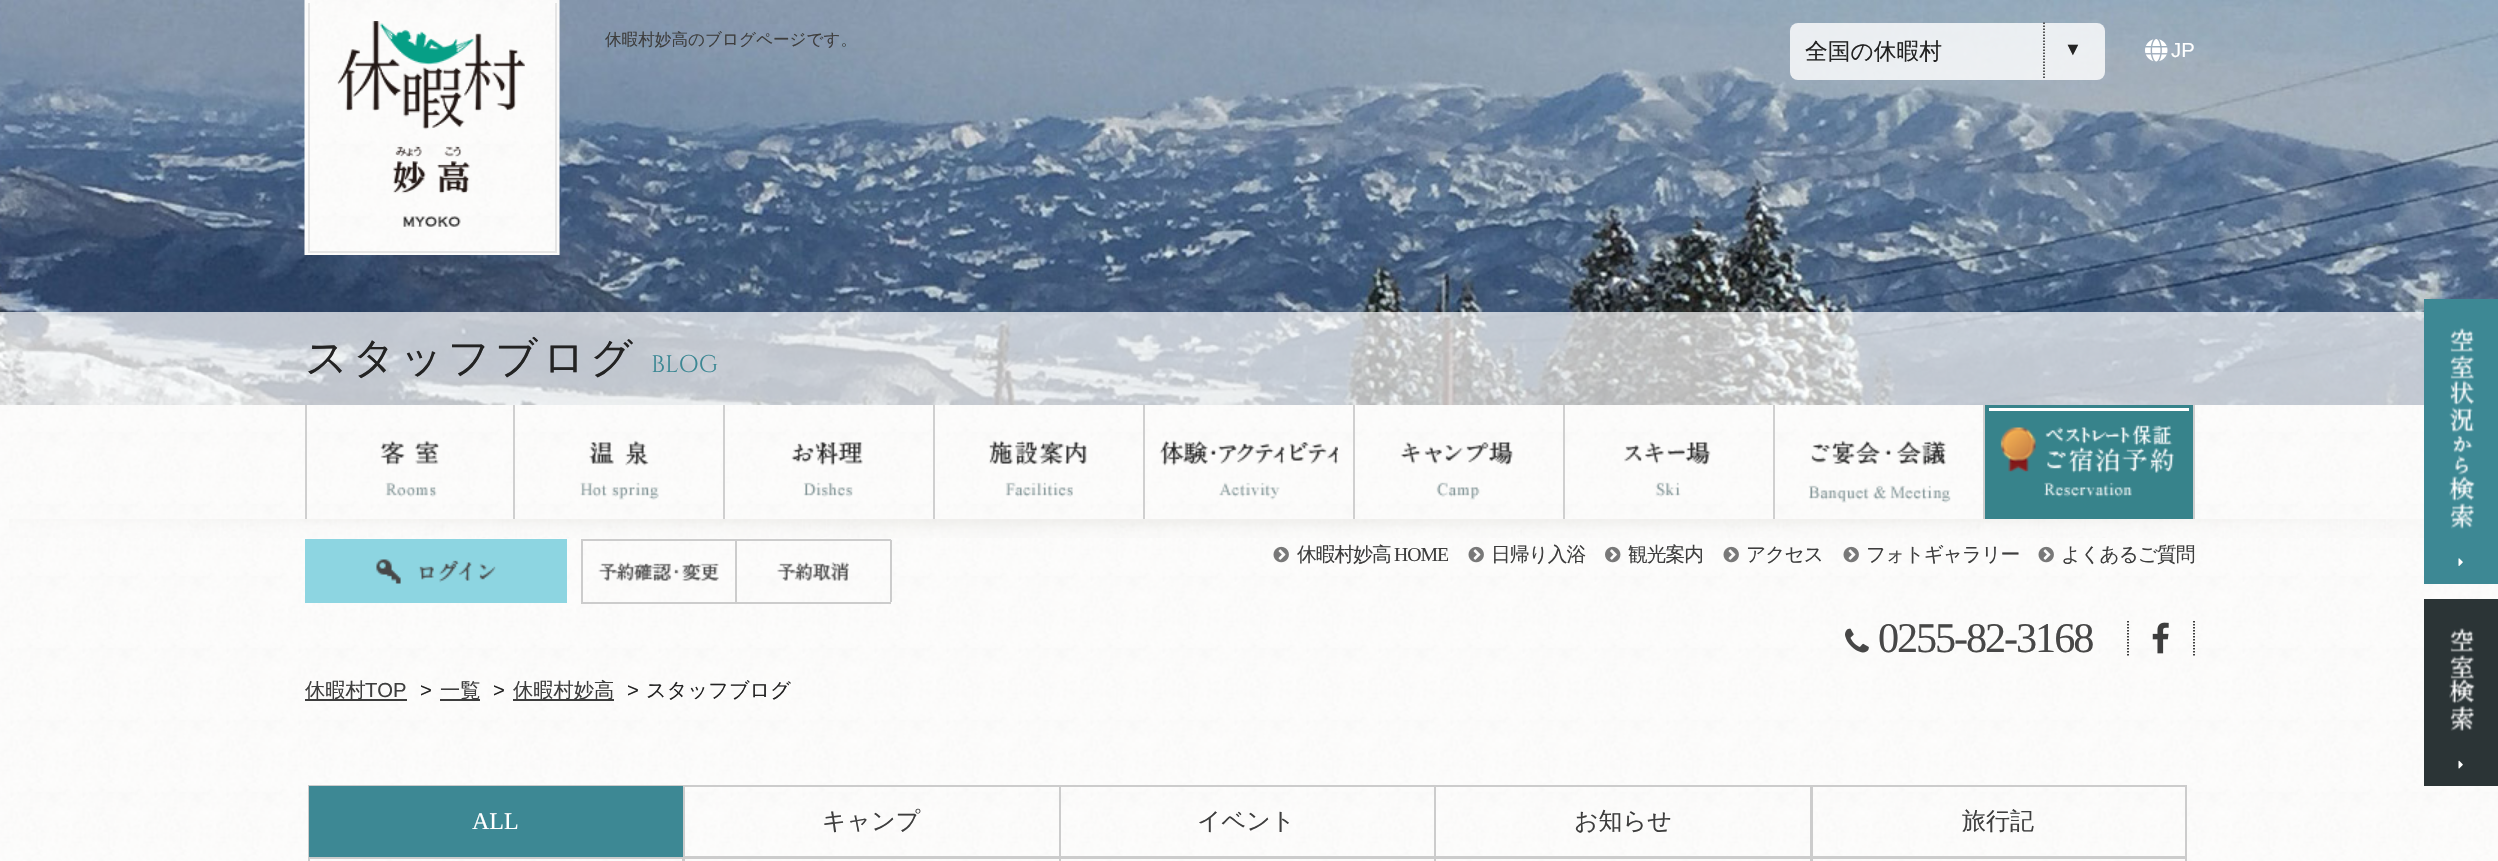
void draw(SkCanvas* canvas) {
    SkPaint paint;
    paint.setAntiAlias(true);
    auto spacedText = [&](const char* s, float x, float y, const SkFont& font, const SkPaint& ink, float letter, float word) {
        std::vector<SkGlyphID> glyphs(font.countText(s, strlen(s), SkTextEncoding::kUTF8));
        std::vector<float> xs(glyphs.size());
        font.textToGlyphs(s, strlen(s), SkTextEncoding::kUTF8, glyphs);
        font.getXPos(glyphs, xs, x);
        float extra = 0;
        for (size_t i = 0; i < glyphs.size(); i++) {
            xs[i] += extra;
            extra += letter + word * (glyphs[i] == font.unicharToGlyph(' '));
        }
        canvas->drawTextBlob(SkTextBlob::MakeFromPosHGlyphs(glyphs, xs, y, font), 0, 0, ink);
    };
    canvas->clear(0xFFFFFFFF);
    canvas->drawImageRect(SkImages::DeferredFromEncodedData(SkData::MakeFromFileName("img1.png")), SkRect::MakeXYWH(0, 405, 2498, 456), SkSamplingOptions());
    canvas->drawImageRect(SkImages::DeferredFromEncodedData(SkData::MakeFromFileName("img2.png")), SkRect::MakeXYWH(0, 0, 2498, 405), SkSamplingOptions());
    canvas->drawImageRect(SkImages::DeferredFromEncodedData(SkData::MakeFromFileName("img3.png")), SkRect::MakeXYWH(304, 0, 256, 255), SkSamplingOptions());
    paint.setColor(0xFFE5E5E5);
    canvas->drawRect(SkRect::MakeXYWH(555, 3, 2, 249), paint);
    canvas->drawRect(SkRect::MakeXYWH(308, 251, 249, 2), paint);
    canvas->drawRect(SkRect::MakeXYWH(308, 3, 2, 249), paint);
    canvas->drawImageRect(SkImages::DeferredFromEncodedData(SkData::MakeFromFileName("img4.png")), SkRect::MakeXYWH(337, 21, 188, 206), SkSamplingOptions());
    SkFont font1(fontMgr->matchFamilyStyle("WenQuanYi Zen Hei", SkFontStyle(500, SkFontStyle::kNormal_Width, SkFontStyle::kUpright_Slant)), 16.6f);
    font1.setSubpixel(true);
    paint.setColor(0xFF3E3E3E);
    canvas->drawString("休暇村妙高のブログページです。", 605, 45, font1, paint);
    paint.setColor(0xCCFFFFFF);
    canvas->drawRoundRect(SkRect::MakeXYWH(1790, 23, 315, 57), 8, 8, paint);
    paint.setStyle(SkPaint::kStroke_Style);
    paint.setStrokeWidth(1.5f);
    paint.setColor(0xFF222222);
    paint.setPathEffect(SkDashPathEffect::Make({{1.5f, 1.5f}}, 0));
    canvas->drawPath(SkPathBuilder().moveTo(2044, 22.5f).lineTo(2044, 79.5f).detach(), paint);
    paint.setPathEffect(nullptr);
    SkFont font2(fontMgr->matchFamilyStyle("WenQuanYi Zen Hei", SkFontStyle(500, SkFontStyle::kNormal_Width, SkFontStyle::kUpright_Slant)), 22.75f);
    font2.setSubpixel(true);
    paint.setStyle(SkPaint::kFill_Style);
    paint.setColor(0xFF232323);
    canvas->drawString("全国の休暇村", 1805, 59, font2, paint);
    SkFont font3(fontMgr->matchFamilyStyle("Liberation Sans", SkFontStyle::Normal()), 18);
    font3.setSubpixel(true);
    canvas->drawString("▼", 2064, 55, font3, paint);
    canvas->drawImageRect(SkImages::DeferredFromEncodedData(SkData::MakeFromFileName("img5.png")), SkRect::MakeXYWH(2145, 39, 23, 23), SkSamplingOptions());
    SkFont font4(fontMgr->matchFamilyStyle("Liberation Sans", SkFontStyle::Normal()), 20.25f);
    font4.setSubpixel(true);
    paint.setColor(0xFFFFFFFF);
    canvas->drawString("JP", 2171, 57, font4, paint);
    paint.setColor(0xB3FFFFFF);
    canvas->drawRect(SkRect::MakeXYWH(0, 312, 2424, 93), paint);
    SkFont font5(fontMgr->matchFamilyStyle("WenQuanYi Zen Hei", SkFontStyle(500, SkFontStyle::kNormal_Width, SkFontStyle::kUpright_Slant)), 42.25f);
    font5.setSubpixel(true);
    paint.setColor(0xFF232323);
    spacedText("スタッフブログ", 305, 372, font5, paint, 4.25f, 0);
    SkFont font6(fontMgr->matchFamilyStyle("Cinzel", SkFontStyle::Normal()), 24);
    font6.setSubpixel(true);
    paint.setColor(0xFF3D8894);
    canvas->drawString("BLOG", 651, 372, font6, paint);
    canvas->drawImageRect(SkImages::DeferredFromEncodedData(SkData::MakeFromFileName("img6.png")), SkRect::MakeXYWH(9, 519, 2415, 19), SkSamplingOptions());
    paint.setColor(0xFFCFCFCF);
    canvas->drawRect(SkRect::MakeXYWH(513, 405, 2, 114), paint);
    canvas->drawRect(SkRect::MakeXYWH(305, 405, 2, 114), paint);
    canvas->drawImageRect(SkImages::DeferredFromEncodedData(SkData::MakeFromFileName("img7.png")), SkRect::MakeXYWH(380, 440, 60, 57), SkSamplingOptions());
    canvas->drawRect(SkRect::MakeXYWH(723, 405, 2, 114), paint);
    canvas->drawImageRect(SkImages::DeferredFromEncodedData(SkData::MakeFromFileName("img8.png")), SkRect::MakeXYWH(580, 440, 79, 60), SkSamplingOptions());
    canvas->drawRect(SkRect::MakeXYWH(933, 405, 2, 114), paint);
    canvas->drawImageRect(SkImages::DeferredFromEncodedData(SkData::MakeFromFileName("img9.png")), SkRect::MakeXYWH(791, 441, 72, 56), SkSamplingOptions());
    canvas->drawRect(SkRect::MakeXYWH(1143, 405, 2, 114), paint);
    canvas->drawImageRect(SkImages::DeferredFromEncodedData(SkData::MakeFromFileName("img10.png")), SkRect::MakeXYWH(988, 440, 99, 57), SkSamplingOptions());
    canvas->drawRect(SkRect::MakeXYWH(1353, 405, 2, 114), paint);
    canvas->drawImageRect(SkImages::DeferredFromEncodedData(SkData::MakeFromFileName("img11.png")), SkRect::MakeXYWH(1159, 440, 179, 60), SkSamplingOptions());
    canvas->drawRect(SkRect::MakeXYWH(1563, 405, 2, 114), paint);
    canvas->drawImageRect(SkImages::DeferredFromEncodedData(SkData::MakeFromFileName("img12.png")), SkRect::MakeXYWH(1400, 441, 114, 59), SkSamplingOptions());
    canvas->drawRect(SkRect::MakeXYWH(1773, 405, 2, 114), paint);
    canvas->drawImageRect(SkImages::DeferredFromEncodedData(SkData::MakeFromFileName("img13.png")), SkRect::MakeXYWH(1624, 441, 87, 56), SkSamplingOptions());
    canvas->drawRect(SkRect::MakeXYWH(1983, 405, 2, 114), paint);
    canvas->drawImageRect(SkImages::DeferredFromEncodedData(SkData::MakeFromFileName("img14.png")), SkRect::MakeXYWH(1808, 440, 143, 63), SkSamplingOptions());
    canvas->drawRect(SkRect::MakeXYWH(2193, 405, 2, 114), paint);
    paint.setColor(0xFF37838B);
    canvas->drawRect(SkRect::MakeXYWH(1985, 405, 208, 114), paint);
    canvas->drawImageRect(SkImages::DeferredFromEncodedData(SkData::MakeFromFileName("img15.png")), SkRect::MakeXYWH(2000, 424, 174, 73), SkSamplingOptions());
    paint.setColor(0xFFFFFFFF);
    canvas->drawRect(SkRect::MakeXYWH(1989, 408, 200, 3), paint);
    paint.setColor(0xFF3D8894);
    canvas->drawRect(SkRect::MakeXYWH(2424, 299, 74, 285), paint);
    canvas->drawImageRect(SkImages::DeferredFromEncodedData(SkData::MakeFromFileName("img16.png")), SkRect::MakeXYWH(2449, 328, 26, 201), SkSamplingOptions());
    canvas->drawImageRect(SkImages::DeferredFromEncodedData(SkData::MakeFromFileName("img17.png")), SkRect::MakeXYWH(2458, 558, 5, 8), SkSamplingOptions());
    paint.setColor(0xFF2B3436);
    canvas->drawRect(SkRect::MakeXYWH(2424, 599, 74, 187), paint);
    canvas->drawImageRect(SkImages::DeferredFromEncodedData(SkData::MakeFromFileName("img18.png")), SkRect::MakeXYWH(2449, 628, 26, 103), SkSamplingOptions());
    canvas->drawImageRect(SkImages::DeferredFromEncodedData(SkData::MakeFromFileName("img19.png")), SkRect::MakeXYWH(2458, 760, 5, 9), SkSamplingOptions());
    paint.setColor(0xFF8DD5E1);
    canvas->drawRect(SkRect::MakeXYWH(305, 539, 262, 64), paint);
    canvas->drawImageRect(SkImages::DeferredFromEncodedData(SkData::MakeFromFileName("img20.png")), SkRect::MakeXYWH(376, 559, 120, 25), SkSamplingOptions());
    paint.setColor(0xFFCCCCCC);
    canvas->drawRect(SkRect::MakeXYWH(581, 539, 310, 2), paint);
    canvas->drawRect(SkRect::MakeXYWH(581, 602, 310, 2), paint);
    canvas->drawRect(SkRect::MakeXYWH(581, 539, 2, 64), paint);
    canvas->drawRect(SkRect::MakeXYWH(735, 540, 2, 62), paint);
    canvas->drawImageRect(SkImages::DeferredFromEncodedData(SkData::MakeFromFileName("img21.png")), SkRect::MakeXYWH(598, 562, 121, 19), SkSamplingOptions());
    canvas->drawRect(SkRect::MakeXYWH(890, 540, 2, 62), paint);
    canvas->drawImageRect(SkImages::DeferredFromEncodedData(SkData::MakeFromFileName("img22.png")), SkRect::MakeXYWH(777, 562, 72, 19), SkSamplingOptions());
    canvas->drawImageRect(SkImages::DeferredFromEncodedData(SkData::MakeFromFileName("img23.png")), SkRect::MakeXYWH(1273, 546, 16, 17), SkSamplingOptions());
    SkFont font7(fontMgr->matchFamilyStyle("WenQuanYi Zen Hei", SkFontStyle(500, SkFontStyle::kNormal_Width, SkFontStyle::kUpright_Slant)), 19.75f);
    font7.setSubpixel(true);
    paint.setColor(0xFF3E3E3E);
    spacedText("休暇村妙高", 1297, 561, font7, paint, -1, 0);
    SkFont font8(fontMgr->matchFamilyStyle("Liberation Serif", SkFontStyle::Normal()), 19.75f);
    font8.setSubpixel(true);
    spacedText("HOME", 1394, 561, font8, paint, -1, 0);
    canvas->drawImageRect(SkImages::DeferredFromEncodedData(SkData::MakeFromFileName("img24.png")), SkRect::MakeXYWH(1468, 546, 16, 17), SkSamplingOptions());
    spacedText("日帰り入浴", 1491, 561, font7, paint, -1, 0);
    canvas->drawImageRect(SkImages::DeferredFromEncodedData(SkData::MakeFromFileName("img25.png")), SkRect::MakeXYWH(1605, 546, 16, 17), SkSamplingOptions());
    spacedText("観光案内", 1628, 561, font7, paint, -1, 0);
    canvas->drawImageRect(SkImages::DeferredFromEncodedData(SkData::MakeFromFileName("img26.png")), SkRect::MakeXYWH(1723, 546, 16, 17), SkSamplingOptions());
    spacedText("アクセス", 1746, 561, font7, paint, -1, 0);
    canvas->drawImageRect(SkImages::DeferredFromEncodedData(SkData::MakeFromFileName("img27.png")), SkRect::MakeXYWH(1843, 546, 16, 17), SkSamplingOptions());
    spacedText("フォトギャラリー", 1866, 561, font7, paint, -1, 0);
    canvas->drawImageRect(SkImages::DeferredFromEncodedData(SkData::MakeFromFileName("img28.png")), SkRect::MakeXYWH(2038, 546, 16, 17), SkSamplingOptions());
    spacedText("よくあるご質問", 2061, 561, font7, paint, -1, 0);
    canvas->drawImageRect(SkImages::DeferredFromEncodedData(SkData::MakeFromFileName("img29.png")), SkRect::MakeXYWH(1845, 628, 24, 25), SkSamplingOptions());
    SkFont font9(fontMgr->matchFamilyStyle("Liberation Serif", SkFontStyle::Normal()), 42.25f);
    font9.setSubpixel(true);
    paint.setColor(0xFF474747);
    spacedText("0255-82-3168", 1878, 652, font9, paint, -2.1f, 0);
    paint.setStyle(SkPaint::kStroke_Style);
    paint.setColor(0xFF000000);
    paint.setPathEffect(SkDashPathEffect::Make({{1.5f, 1.5f}}, 0));
    canvas->drawPath(SkPathBuilder().moveTo(2194, 621).lineTo(2194, 655.5f).detach(), paint);
    paint.setPathEffect(nullptr);
    paint.setPathEffect(SkDashPathEffect::Make({{1.5f, 1.5f}}, 0));
    canvas->drawPath(SkPathBuilder().moveTo(2128, 621).lineTo(2128, 655.5f).detach(), paint);
    paint.setPathEffect(nullptr);
    canvas->drawImageRect(SkImages::DeferredFromEncodedData(SkData::MakeFromFileName("img30.png")), SkRect::MakeXYWH(2152, 622, 17, 32), SkSamplingOptions());
    paint.setStyle(SkPaint::kFill_Style);
    paint.setColor(0xFF3D3D3D);
    canvas->drawRect(SkRect::MakeXYWH(305, 699, 102, 2), paint);
    SkFont font10(fontMgr->matchFamilyStyle("WenQuanYi Zen Hei", SkFontStyle(500, SkFontStyle::kNormal_Width, SkFontStyle::kUpright_Slant)), 20.25f);
    font10.setSubpixel(true);
    paint.setColor(0xFF3E3E3E);
    canvas->drawString("休暇村", 305, 697, font10, paint);
    canvas->drawString("TOP", 365, 697, font4, paint);
    paint.setColor(0xFF232323);
    canvas->drawString(">", 420, 697, font4, paint);
    paint.setColor(0xFF3D3D3D);
    canvas->drawRect(SkRect::MakeXYWH(440, 699, 40, 2), paint);
    paint.setColor(0xFF3E3E3E);
    canvas->drawString("一覧", 440, 697, font10, paint);
    paint.setColor(0xFF232323);
    canvas->drawString(">", 493, 697, font4, paint);
    paint.setColor(0xFF3D3D3D);
    canvas->drawRect(SkRect::MakeXYWH(513, 699, 101, 2), paint);
    paint.setColor(0xFF3E3E3E);
    canvas->drawString("休暇村妙高", 513, 697, font10, paint);
    paint.setColor(0xFF232323);
    canvas->drawString(">", 627, 697, font4, paint);
    canvas->drawString("スタッフブログ", 646, 697, font10, paint);
    paint.setStyle(SkPaint::kStroke_Style);
    paint.setStrokeWidth(2);
    paint.setColor(0xFFCCCCCC);
    canvas->drawRect(SkRect::MakeXYWH(309, 786, 374, 71), paint);
    paint.setStyle(SkPaint::kFill_Style);
    paint.setColor(0xFF3D8894);
    canvas->drawRect(SkRect::MakeXYWH(309, 786, 374, 71), paint);
    SkFont font11(fontMgr->matchFamilyStyle("Liberation Serif", SkFontStyle::Normal()), 24);
    font11.setSubpixel(true);
    paint.setColor(0xFFFFFFFF);
    canvas->drawString("ALL", 472, 829, font11, paint);
    paint.setStyle(SkPaint::kStroke_Style);
    paint.setColor(0xFFCCCCCC);
    canvas->drawRect(SkRect::MakeXYWH(684, 786, 376, 71), paint);
    SkFont font12(fontMgr->matchFamilyStyle("WenQuanYi Zen Hei", SkFontStyle(500, SkFontStyle::kNormal_Width, SkFontStyle::kUpright_Slant)), 24);
    font12.setSubpixel(true);
    paint.setStyle(SkPaint::kFill_Style);
    paint.setColor(0xFF3E3E3E);
    canvas->drawString("キャンプ", 822, 829, font12, paint);
    paint.setStyle(SkPaint::kStroke_Style);
    paint.setColor(0xFFCCCCCC);
    canvas->drawRect(SkRect::MakeXYWH(1060, 786, 375, 71), paint);
    paint.setStyle(SkPaint::kFill_Style);
    paint.setColor(0xFF3E3E3E);
    canvas->drawString("イベント", 1197, 829, font12, paint);
    paint.setStyle(SkPaint::kStroke_Style);
    paint.setColor(0xFFCCCCCC);
    canvas->drawRect(SkRect::MakeXYWH(1435, 786, 376, 71), paint);
    paint.setStyle(SkPaint::kFill_Style);
    paint.setColor(0xFF3E3E3E);
    canvas->drawString("お知らせ", 1574, 829, font12, paint);
    paint.setStyle(SkPaint::kStroke_Style);
    paint.setColor(0xFFCCCCCC);
    canvas->drawRect(SkRect::MakeXYWH(1812, 786, 374, 71), paint);
    paint.setStyle(SkPaint::kFill_Style);
    paint.setColor(0xFF3E3E3E);
    canvas->drawString("旅行記", 1962, 829, font12, paint);
    paint.setStyle(SkPaint::kStroke_Style);
    paint.setColor(0xFFCCCCCC);
    canvas->drawRect(SkRect::MakeXYWH(309, 858, 374, 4), paint);
    canvas->drawRect(SkRect::MakeXYWH(684, 858, 376, 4), paint);
    canvas->drawRect(SkRect::MakeXYWH(1060, 858, 375, 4), paint);
    canvas->drawRect(SkRect::MakeXYWH(1435, 858, 376, 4), paint);
    canvas->drawRect(SkRect::MakeXYWH(1812, 858, 374, 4), paint);
}
